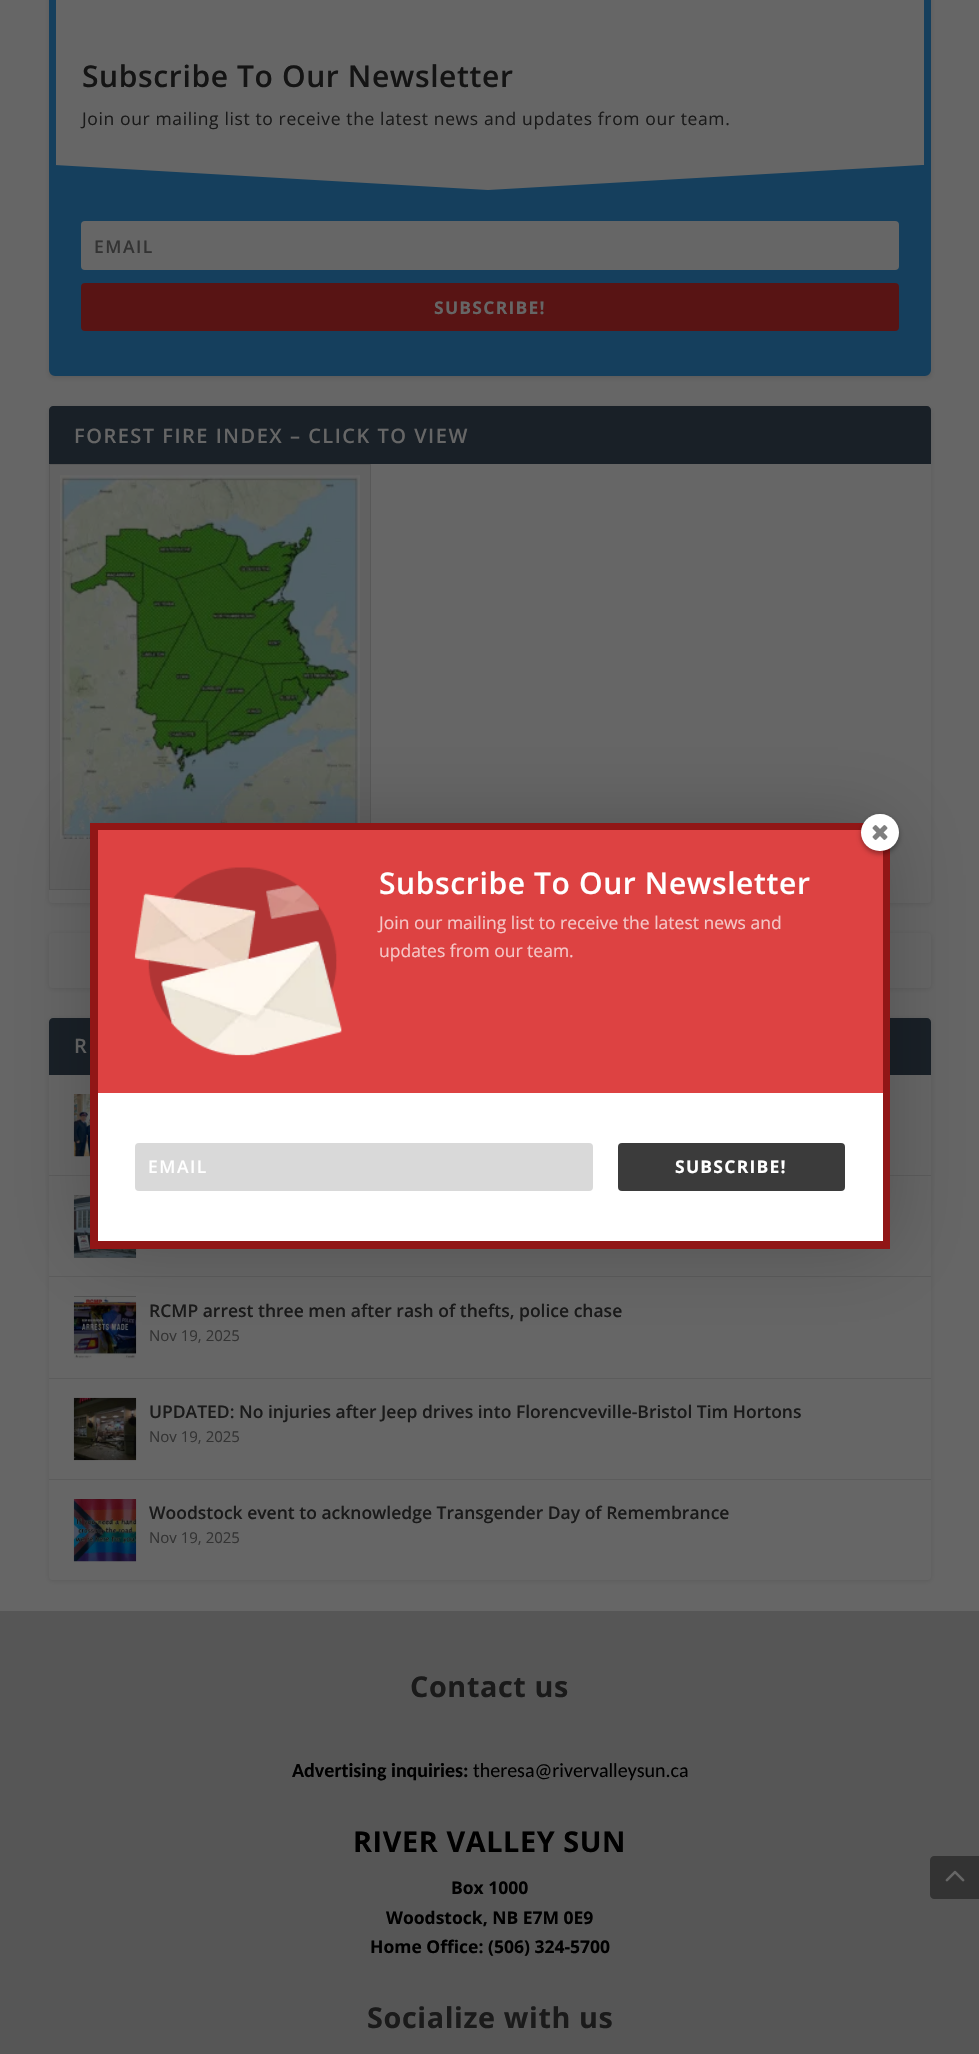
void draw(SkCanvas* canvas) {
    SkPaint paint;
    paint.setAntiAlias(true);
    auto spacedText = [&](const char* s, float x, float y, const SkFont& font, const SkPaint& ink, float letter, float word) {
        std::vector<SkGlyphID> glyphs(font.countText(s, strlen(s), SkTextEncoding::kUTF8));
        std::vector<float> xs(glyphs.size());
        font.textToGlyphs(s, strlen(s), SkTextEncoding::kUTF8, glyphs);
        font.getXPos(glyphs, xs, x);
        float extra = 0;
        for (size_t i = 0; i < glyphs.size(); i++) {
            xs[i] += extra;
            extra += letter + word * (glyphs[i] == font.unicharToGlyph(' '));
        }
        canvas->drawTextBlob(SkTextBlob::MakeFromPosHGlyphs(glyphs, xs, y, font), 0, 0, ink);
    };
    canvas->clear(0xFF666666);
    paint.setColor(0x1A000000);
    paint.setMaskFilter(SkMaskFilter::MakeBlur(kNormal_SkBlurStyle, 2));
    canvas->drawRoundRect(SkRect::MakeXYWH(49, -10, 882, 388), 4, 4, paint);
    paint.setMaskFilter(nullptr);
    paint.setStyle(SkPaint::kStroke_Style);
    paint.setStrokeWidth(8);
    paint.setColor(0xFF153F5D);
    canvas->drawRoundRect(SkRect::MakeXYWH(53, -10, 874, 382), 2, 2, paint);
    paint.setStyle(SkPaint::kFill_Style);
    paint.setColor(0xFF666666);
    canvas->drawRect(SkRect::MakeXYWH(56, 0, 868, 165), paint);
    SkFont font1(fontMgr->matchFamilyStyle("Open Sans", SkFontStyle(600, SkFontStyle::kNormal_Width, SkFontStyle::kUpright_Slant)), 30);
    font1.setSubpixel(true);
    paint.setColor(0xFF141414);
    spacedText("Subscribe To Our Newsletter", 82, 87, font1, paint, 0.62f, 0);
    SkFont font2(fontMgr->matchFamilyStyle("Open Sans", SkFontStyle::Normal()), 17.5f);
    font2.setSubpixel(true);
    paint.setColor(0xFF1A1A1A);
    spacedText("Join our mailing list to receive the latest news and updates from our team.", 82, 125, font2, paint, 0.62f, 0);
    paint.setColor(0xFF153F5D);
    canvas->drawRect(SkRect::MakeXYWH(57, 165, 866, 203), paint);
    paint.setColor(0xFF666666);
    canvas->drawPath(SkPathBuilder().moveTo(55, 165).lineTo(488, 190).lineTo(922, 165).close().detach(), paint);
    canvas->drawRoundRect(SkRect::MakeXYWH(81, 221, 818, 49), 4, 4, paint);
    SkFont font3(fontMgr->matchFamilyStyle("Open Sans", SkFontStyle(600, SkFontStyle::kNormal_Width, SkFontStyle::kUpright_Slant)), 17.5f);
    font3.setSubpixel(true);
    paint.setColor(0xFF333333);
    spacedText("EMAIL", 94, 253, font3, paint, 1.5f, 0);
    paint.setColor(0xFF581414);
    canvas->drawRoundRect(SkRect::MakeXYWH(81, 283, 818, 48), 4, 4, paint);
    SkFont font4(fontMgr->matchFamilyStyle("Open Sans", SkFontStyle::Bold()), 17.5f);
    font4.setSubpixel(true);
    paint.setColor(0xFF666666);
    spacedText("SUBSCRIBE!", 434, 314, font4, paint, 1.25f, 0);
    paint.setColor(0x1A000000);
    paint.setMaskFilter(SkMaskFilter::MakeBlur(kNormal_SkBlurStyle, 2));
    canvas->drawRoundRect(SkRect::MakeXYWH(49, 408, 882, 496), 4, 4, paint);
    paint.setMaskFilter(nullptr);
    paint.setColor(0xFF666666);
    canvas->drawRoundRect(SkRect::MakeXYWH(49, 406, 882, 497), 4, 4, paint);
    paint.setColor(0xFF192027);
    canvas->drawPath(SkPathBuilder().moveTo(53, 406).lineTo(927, 406).cubicTo(929, 406, 931, 408, 931, 410).lineTo(931, 464).lineTo(49, 464).lineTo(49, 410).cubicTo(49, 408, 51, 406, 53, 406).close().detach(), paint);
    SkFont font5(fontMgr->matchFamilyStyle("Open Sans", SkFontStyle(600, SkFontStyle::kNormal_Width, SkFontStyle::kUpright_Slant)), 20);
    font5.setSubpixel(true);
    paint.setColor(0xFF666666);
    spacedText("FOREST FIRE INDEX – CLICK TO VIEW", 74, 443, font5, paint, 1.5f, 0);
    paint.setColor(0xFF616161);
    canvas->drawRect(SkRect::MakeXYWH(49.5f, 464.5f, 321, 425), paint);
    paint.setStyle(SkPaint::kStroke_Style);
    paint.setStrokeWidth(1);
    paint.setColor(0xFF585858);
    canvas->drawRect(SkRect::MakeXYWH(49.5f, 464.5f, 321, 425), paint);
    canvas->drawImageRect(SkImages::DeferredFromEncodedData(SkData::MakeFromFileName("img1.png")), SkRect::MakeXYWH(60, 475, 300, 364), SkSamplingOptions());
    paint.setStyle(SkPaint::kFill_Style);
    paint.setColor(0x1A000000);
    paint.setMaskFilter(SkMaskFilter::MakeBlur(kNormal_SkBlurStyle, 2));
    canvas->drawRoundRect(SkRect::MakeXYWH(49, 934, 882, 55), 4, 4, paint);
    paint.setMaskFilter(nullptr);
    paint.setColor(0xFF666666);
    canvas->drawRoundRect(SkRect::MakeXYWH(49, 933, 882, 55), 4, 4, paint);
    paint.setColor(0x1A000000);
    paint.setMaskFilter(SkMaskFilter::MakeBlur(kNormal_SkBlurStyle, 2));
    canvas->drawRoundRect(SkRect::MakeXYWH(49, 1019, 882, 562), 4, 4, paint);
    paint.setMaskFilter(nullptr);
    paint.setColor(0xFF666666);
    canvas->drawRoundRect(SkRect::MakeXYWH(49, 1018, 882, 562), 4, 4, paint);
    paint.setColor(0xFF192027);
    canvas->drawPath(SkPathBuilder().moveTo(53, 1018).lineTo(927, 1018).cubicTo(929, 1018, 931, 1020, 931, 1022).lineTo(931, 1075).lineTo(49, 1075).lineTo(49, 1022).cubicTo(49, 1020, 51, 1018, 53, 1018).close().detach(), paint);
    paint.setColor(0xFF666666);
    spacedText("R", 74, 1053, font5, paint, 1.5f, 0);
    paint.setColor(0xFF5C5C5C);
    canvas->drawRect(SkRect::MakeXYWH(49, 1175, 882, 1), paint);
    canvas->drawImageRect(SkImages::DeferredFromEncodedData(SkData::MakeFromFileName("img2.png")), SkRect::MakeXYWH(73, 1094, 17, 63), SkSamplingOptions());
    canvas->drawRect(SkRect::MakeXYWH(49, 1276, 882, 1), paint);
    paint.setColor(0xFF4B4B4B);
    canvas->drawRect(SkRect::MakeXYWH(74, 1195, 62, 63), paint);
    canvas->drawImageRect(SkImages::DeferredFromEncodedData(SkData::MakeFromFileName("img3.png")), SkRect::MakeXYWH(73, 1195, 64, 63), SkSamplingOptions());
    paint.setColor(0xFF5C5C5C);
    canvas->drawRect(SkRect::MakeXYWH(49, 1378, 882, 1), paint);
    paint.setColor(0xFF4B4B4B);
    canvas->drawRect(SkRect::MakeXYWH(74, 1296, 62, 1), paint);
    canvas->drawImageRect(SkImages::DeferredFromEncodedData(SkData::MakeFromFileName("img4.png")), SkRect::MakeXYWH(73, 1296, 64, 63), SkSamplingOptions());
    paint.setColor(0xFF1A1A1A);
    canvas->drawString("RCMP arrest three men after rash of thefts, police chase", 149, 1317, font3, paint);
    SkFont font6(fontMgr->matchFamilyStyle("Open Sans", SkFontStyle::Normal()), 15);
    font6.setSubpixel(true);
    paint.setColor(0xFF333333);
    canvas->drawString("Nov 19, 2025", 149, 1341, font6, paint);
    paint.setColor(0xFF5C5C5C);
    canvas->drawRect(SkRect::MakeXYWH(49, 1479, 882, 1), paint);
    canvas->drawImageRect(SkImages::DeferredFromEncodedData(SkData::MakeFromFileName("img5.png")), SkRect::MakeXYWH(73, 1397, 64, 64), SkSamplingOptions());
    paint.setColor(0xFF1A1A1A);
    canvas->drawString("UPDATED: No injuries after Jeep drives into Florencveville-Bristol Tim Hortons", 149, 1418, font3, paint);
    paint.setColor(0xFF333333);
    canvas->drawString("Nov 19, 2025", 149, 1442, font6, paint);
    canvas->drawImageRect(SkImages::DeferredFromEncodedData(SkData::MakeFromFileName("img6.png")), SkRect::MakeXYWH(73, 1499, 64, 63), SkSamplingOptions());
    paint.setColor(0xFF1A1A1A);
    canvas->drawString("Woodstock event to acknowledge Transgender Day of Remembrance", 149, 1519, font3, paint);
    paint.setColor(0xFF333333);
    canvas->drawString("Nov 19, 2025", 149, 1543, font6, paint);
    paint.setColor(0xFF565656);
    canvas->drawRect(SkRect::MakeXYWH(0, 1611, 979, 443), paint);
    SkFont font7(fontMgr->matchFamilyStyle("Open Sans", SkFontStyle::Bold()), 28.75f);
    font7.setSubpixel(true);
    paint.setColor(0xFF1A1A1A);
    spacedText("Contact us", 410, 1697, font7, paint, 0.62f, 0);
    SkFont font8(fontMgr->matchFamilyStyle("Carlito", SkFontStyle::Bold()), 20);
    font8.setSubpixel(true);
    paint.setColor(0xFF000000);
    canvas->drawString("Advertising inquiries:", 292, 1777, font8, paint);
    SkFont font9(fontMgr->matchFamilyStyle("Carlito", SkFontStyle::Normal()), 20);
    font9.setSubpixel(true);
    canvas->drawString("theresa@rivervalleysun.ca", 473, 1777, font9, paint);
    spacedText("RIVER VALLEY SUN", 353, 1852, font7, paint, 0.62f, 0);
    canvas->drawString("Box 1000", 451, 1894, font4, paint);
    canvas->drawString("Woodstock, NB E7M 0E9", 386, 1924, font4, paint);
    canvas->drawString("Home Office: (506) 324-5700", 370, 1953, font4, paint);
    paint.setColor(0xFF1A1A1A);
    spacedText("Socialize with us", 367, 2028, font7, paint, 0.62f, 0);
    paint.setColor(0x33000000);
    paint.setMaskFilter(SkMaskFilter::MakeBlur(kNormal_SkBlurStyle, 37.5f));
    canvas->drawRect(SkRect::MakeXYWH(90, 823, 800, 426), paint);
    paint.setMaskFilter(nullptr);
    paint.setStyle(SkPaint::kStroke_Style);
    paint.setStrokeWidth(8);
    paint.setColor(0xFF911616);
    canvas->drawRect(SkRect::MakeXYWH(94, 827, 792, 418), paint);
    paint.setStyle(SkPaint::kFill_Style);
    paint.setColor(0xFFDD4242);
    canvas->drawRect(SkRect::MakeXYWH(98, 830, 785, 263), paint);
    paint.setColor(0x57000000);
    paint.setMaskFilter(SkMaskFilter::MakeBlur(kNormal_SkBlurStyle, 2.5f));
    canvas->drawRoundRect(SkRect::MakeXYWH(861, 816, 38, 38), 19, 19, paint);
    paint.setMaskFilter(nullptr);
    paint.setColor(0xFFFFFFFF);
    canvas->drawRoundRect(SkRect::MakeXYWH(861, 814, 38, 37), 18.5f, 18.5f, paint);
    canvas->drawImageRect(SkImages::DeferredFromEncodedData(SkData::MakeFromFileName("img7.png")), SkRect::MakeXYWH(872, 825, 16, 15), SkSamplingOptions());
    canvas->drawImageRect(SkImages::DeferredFromEncodedData(SkData::MakeFromFileName("img8.png")), SkRect::MakeXYWH(134, 867, 208, 189), SkSamplingOptions());
    spacedText("Subscribe To Our Newsletter", 379, 894, font1, paint, 0.62f, 0);
    paint.setColor(0xFFF5C6C6);
    canvas->drawString("Join our mailing list to receive the latest news and", 379, 929, font2, paint);
    canvas->drawString("updates from our team.", 379, 957, font2, paint);
    paint.setColor(0xFFFFFFFF);
    canvas->drawRect(SkRect::MakeXYWH(98, 1093, 785, 148), paint);
    paint.setColor(0xFFD9D9D9);
    canvas->drawRoundRect(SkRect::MakeXYWH(135, 1143, 458, 48), 4, 4, paint);
    paint.setColor(0xFFFFFFFF);
    spacedText("EMAIL", 148, 1173, font3, paint, 1.5f, 0);
    paint.setColor(0xFF3B3B3B);
    canvas->drawRoundRect(SkRect::MakeXYWH(618, 1143, 227, 48), 4, 4, paint);
    paint.setColor(0xFFFFFFFF);
    spacedText("SUBSCRIBE!", 675, 1173, font4, paint, 1.25f, 0);
    paint.setColor(0xFF333333);
    canvas->drawPath(SkPathBuilder().moveTo(934, 1856).lineTo(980, 1856).lineTo(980, 1899).lineTo(934, 1899).cubicTo(932, 1899, 930, 1897, 930, 1895).lineTo(930, 1860).cubicTo(930, 1858, 932, 1856, 934, 1856).close().detach(), paint);
    canvas->drawImageRect(SkImages::DeferredFromEncodedData(SkData::MakeFromFileName("img9.png")), SkRect::MakeXYWH(945, 1870, 20, 12), SkSamplingOptions());
}
